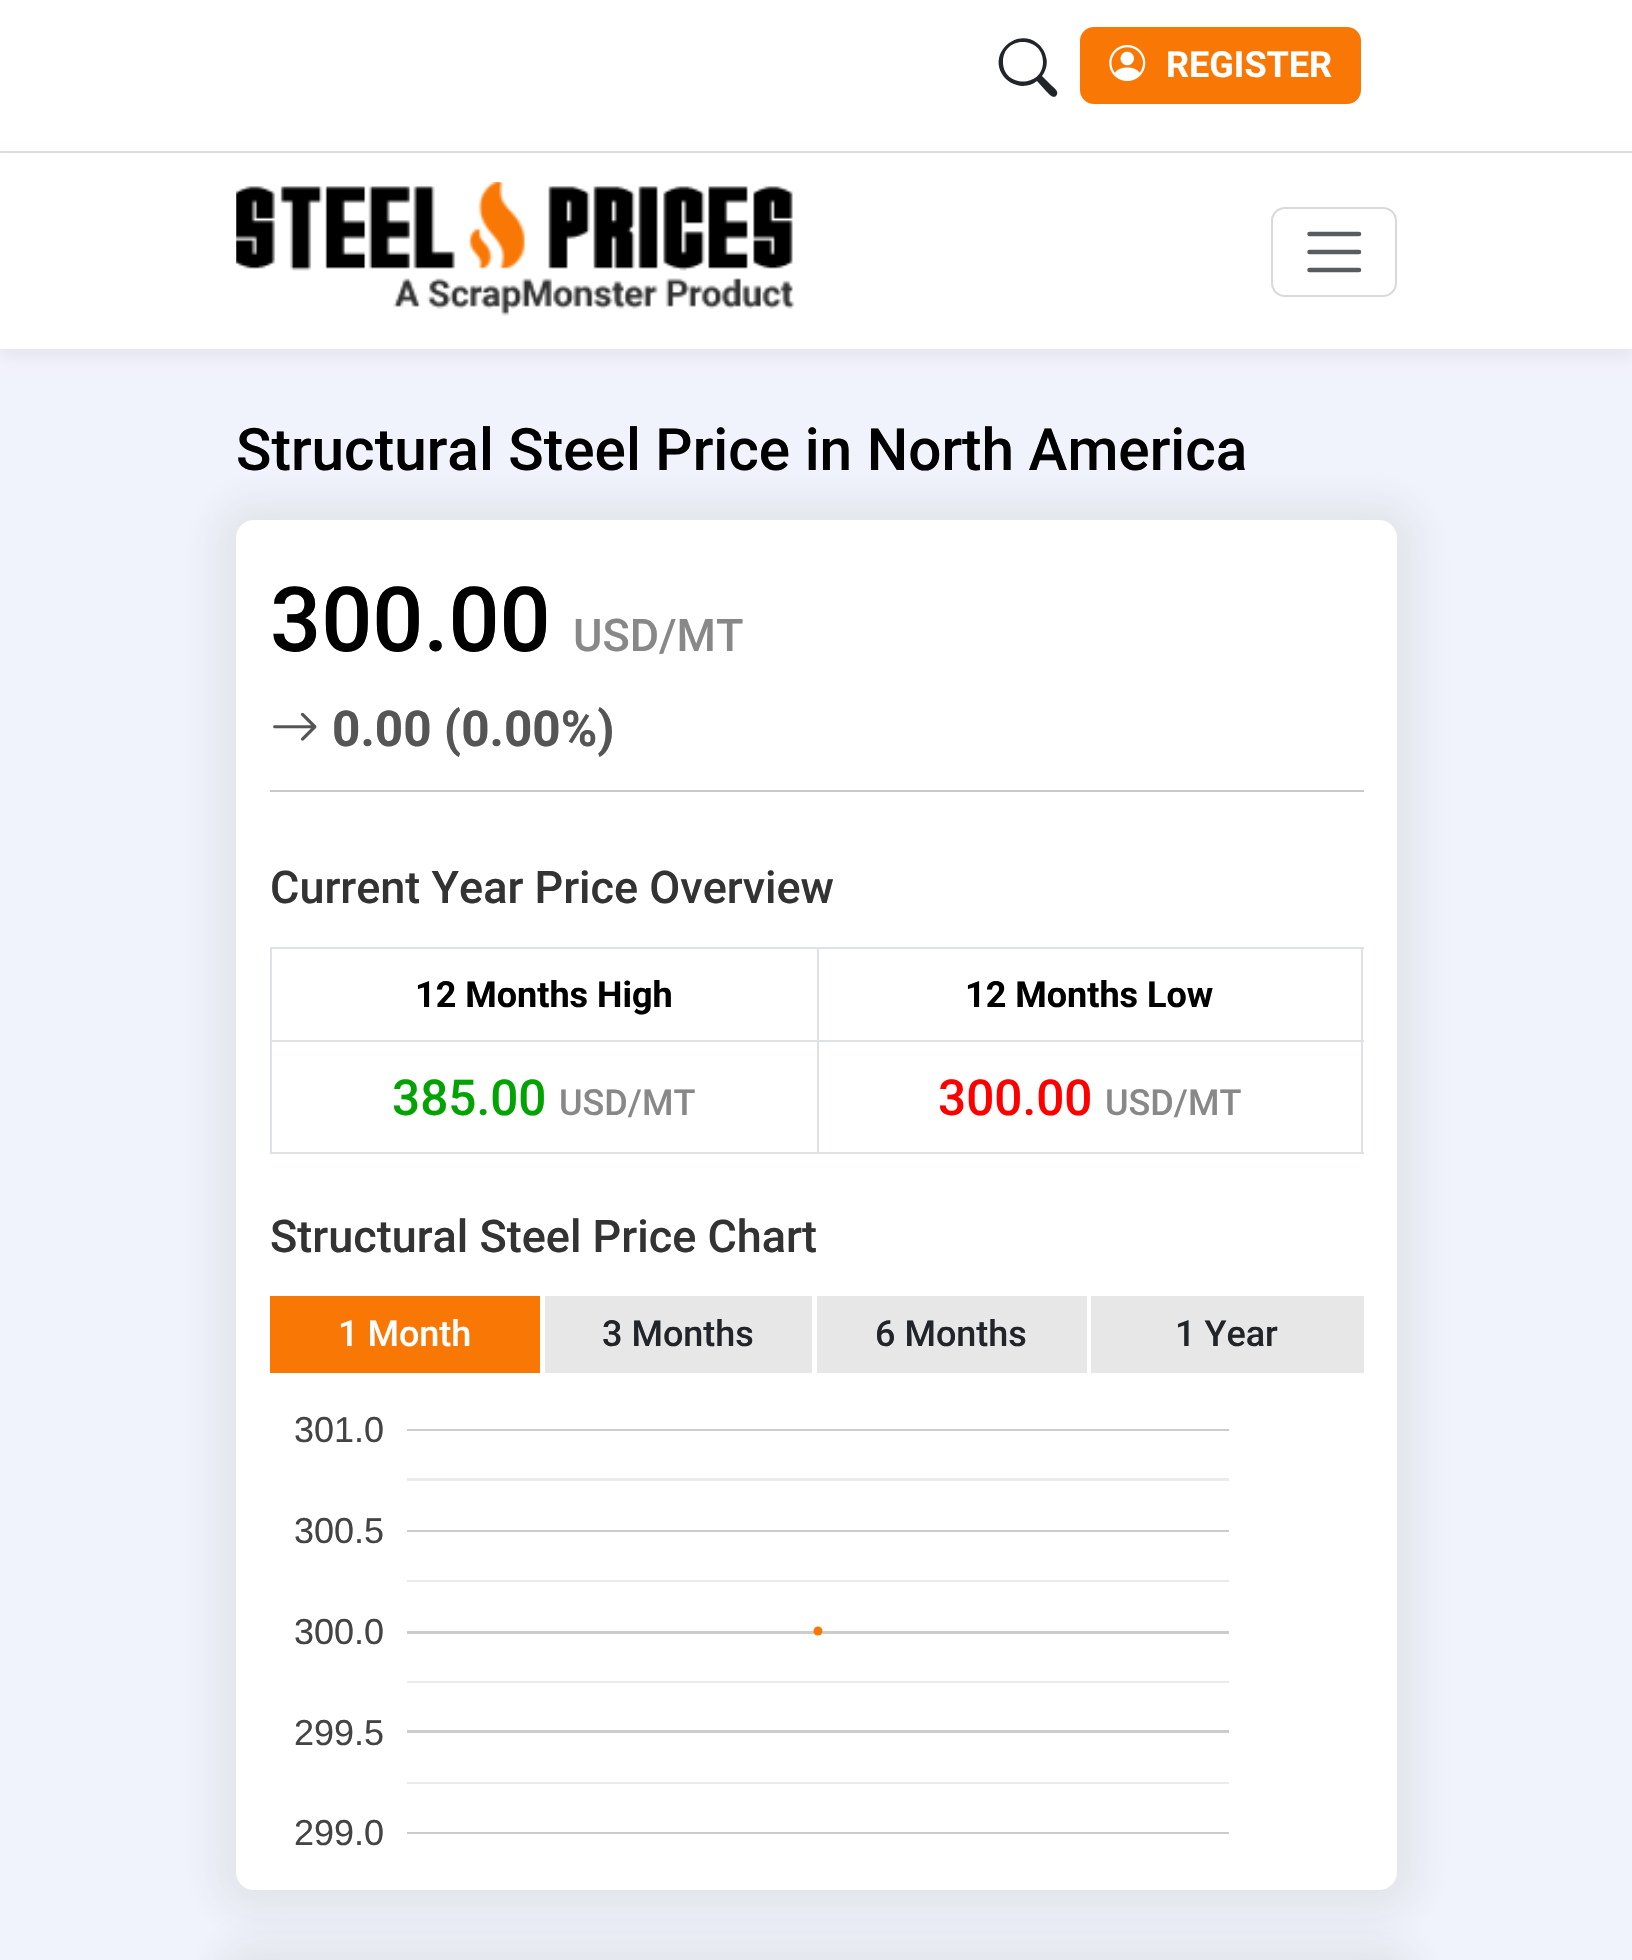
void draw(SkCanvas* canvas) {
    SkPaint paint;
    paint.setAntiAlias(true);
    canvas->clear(0xFFF1F3FC);
    paint.setColor(0xFFFFFFFF);
    canvas->drawRect(SkRect::MakeXYWH(0, 0, 1632, 151), paint);
    paint.setColor(0xFFDDDDDD);
    canvas->drawRect(SkRect::MakeXYWH(0, 151, 1632, 2), paint);
    paint.setColor(0xFF212529);
    canvas->drawPath(SkPathBuilder().moveTo(1042, 76).cubicTo(1046, 71, 1048, 63, 1046, 57).cubicTo(1045, 51, 1041, 46, 1037, 43).cubicTo(1017, 28, 989, 52, 1002, 74).cubicTo(1009, 86, 1026, 90, 1037, 81).lineTo(1046, 91).cubicTo(1048, 93, 1053, 99, 1056, 96).cubicTo(1060, 92, 1054, 88, 1052, 86).close().moveTo(1043, 62).cubicTo(1043, 88, 1003, 88, 1003, 62).cubicTo(1003, 35, 1043, 36, 1043, 62).close().detach(), paint);
    paint.setColor(0xFFF97805);
    canvas->drawRoundRect(SkRect::MakeXYWH(1081, 28, 279, 75), 13, 13, paint);
    paint.setStyle(SkPaint::kStroke_Style);
    paint.setStrokeWidth(2);
    canvas->drawRoundRect(SkRect::MakeXYWH(1081, 28, 279, 75), 13, 13, paint);
    canvas->drawImageRect(SkImages::DeferredFromEncodedData(SkData::MakeFromFileName("img1.png")), SkRect::MakeXYWH(1109, 45, 37, 36), SkSamplingOptions());
    SkFont font1(fontMgr->matchFamilyStyle("Roboto", SkFontStyle::Bold()), 36);
    font1.setSubpixel(true);
    paint.setStyle(SkPaint::kFill_Style);
    paint.setColor(0xFFFFFFFF);
    canvas->drawString("REGISTER", 1166, 77, font1, paint);
    paint.setColor(0x0D0C002E);
    paint.setMaskFilter(SkMaskFilter::MakeBlur(kNormal_SkBlurStyle, 7));
    canvas->drawRect(SkRect::MakeXYWH(0, 162, 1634, 196), paint);
    paint.setMaskFilter(nullptr);
    paint.setColor(0xFFFFFFFF);
    canvas->drawRect(SkRect::MakeXYWH(0, 153, 1632, 196), paint);
    canvas->drawImageRect(SkImages::DeferredFromEncodedData(SkData::MakeFromFileName("img2.png")), SkRect::MakeXYWH(236, 182, 559, 134), SkSamplingOptions());
    paint.setStyle(SkPaint::kStroke_Style);
    paint.setColor(0xFFD9D9D9);
    canvas->drawRoundRect(SkRect::MakeXYWH(1272, 208, 124, 88), 13, 13, paint);
    paint.setStrokeWidth(4.5f);
    paint.setStrokeCap(SkPaint::kRound_Cap);
    paint.setColor(0xFF595C5F);
    canvas->drawPath(SkPathBuilder().moveTo(1309.5f, 234).lineTo(1359, 234).moveTo(1309.5f, 252).lineTo(1359, 252).moveTo(1309.5f, 270).lineTo(1359, 270).detach(), paint);
    SkFont font2(fontMgr->matchFamilyStyle("Roboto", SkFontStyle(500, SkFontStyle::kNormal_Width, SkFontStyle::kUpright_Slant)), 58.5f);
    font2.setSubpixel(true);
    paint.setStyle(SkPaint::kFill_Style);
    paint.setColor(0xFF000000);
    canvas->drawString("Structural Steel Price in North America", 236, 470, font2, paint);
    paint.setColor(0x14404040);
    paint.setMaskFilter(SkMaskFilter::MakeBlur(kNormal_SkBlurStyle, 18));
    canvas->drawRoundRect(SkRect::MakeXYWH(214, 500, 1206, 1415), 41, 41, paint);
    paint.setMaskFilter(nullptr);
    paint.setColor(0xFFFFFFFF);
    canvas->drawRoundRect(SkRect::MakeXYWH(236, 520, 1161, 1370), 18, 18, paint);
    SkFont font3(fontMgr->matchFamilyStyle("Roboto", SkFontStyle(500, SkFontStyle::kNormal_Width, SkFontStyle::kUpright_Slant)), 90);
    font3.setSubpixel(true);
    paint.setColor(0xFF000000);
    canvas->drawString("300.00", 270, 651, font3, paint);
    SkFont font4(fontMgr->matchFamilyStyle("Roboto", SkFontStyle(500, SkFontStyle::kNormal_Width, SkFontStyle::kUpright_Slant)), 45);
    font4.setSubpixel(true);
    paint.setColor(0xFF888888);
    canvas->drawString("USD/MT", 573, 651, font4, paint);
    canvas->drawImageRect(SkImages::DeferredFromEncodedData(SkData::MakeFromFileName("img3.png")), SkRect::MakeXYWH(273, 712, 44, 29), SkSamplingOptions());
    SkFont font5(fontMgr->matchFamilyStyle("Roboto", SkFontStyle::Bold()), 49.5f);
    font5.setSubpixel(true);
    paint.setColor(0xFF555555);
    canvas->drawString("0.00 (0.00%)", 332, 746, font5, paint);
    paint.setColor(0xFFC8C9CA);
    canvas->drawRect(SkRect::MakeXYWH(270, 790, 1094, 2), paint);
    paint.setColor(0xFF333333);
    canvas->drawString("Current Year Price Overview", 270, 903, font4, paint);
    paint.setColor(0xFFDEE2E6);
    canvas->drawRect(SkRect::MakeXYWH(270, 947, 1094, 2), paint);
    paint.setColor(0xFF000000);
    canvas->drawString("12 Months High", 415, 1007, font1, paint);
    canvas->drawString("12 Months Low", 965, 1007, font1, paint);
    paint.setColor(0xFFDEE2E6);
    canvas->drawRect(SkRect::MakeXYWH(270, 1040, 1094, 2), paint);
    canvas->drawRect(SkRect::MakeXYWH(270, 1152, 1094, 2), paint);
    canvas->drawRect(SkRect::MakeXYWH(270, 947, 2, 207), paint);
    SkFont font6(fontMgr->matchFamilyStyle("Roboto", SkFontStyle(500, SkFontStyle::kNormal_Width, SkFontStyle::kUpright_Slant)), 49.5f);
    font6.setSubpixel(true);
    paint.setColor(0xFF04A304);
    canvas->drawString("385.00", 392, 1115, font6, paint);
    SkFont font7(fontMgr->matchFamilyStyle("Roboto", SkFontStyle(500, SkFontStyle::kNormal_Width, SkFontStyle::kUpright_Slant)), 36);
    font7.setSubpixel(true);
    paint.setColor(0xFF888888);
    canvas->drawString("USD/MT", 559, 1115, font7, paint);
    paint.setColor(0xFFDEE2E6);
    canvas->drawRect(SkRect::MakeXYWH(1361, 947, 2, 207), paint);
    canvas->drawRect(SkRect::MakeXYWH(817, 947, 2, 207), paint);
    paint.setColor(0xFFFF0000);
    canvas->drawString("300.00", 938, 1115, font6, paint);
    paint.setColor(0xFF888888);
    canvas->drawString("USD/MT", 1105, 1115, font7, paint);
    paint.setColor(0xFF333333);
    canvas->drawString("Structural Steel Price Chart", 270, 1252, font4, paint);
    paint.setColor(0xFFE7E7E7);
    canvas->drawRect(SkRect::MakeXYWH(545, 1296, 542, 77), paint);
    paint.setColor(0xFFF97805);
    canvas->drawRect(SkRect::MakeXYWH(270, 1296, 270, 77), paint);
    paint.setColor(0xFFFFFFFF);
    canvas->drawString("1 Month", 338, 1346, font7, paint);
    canvas->drawRect(SkRect::MakeXYWH(812, 1296, 5, 77), paint);
    paint.setColor(0xFF212529);
    canvas->drawString("3 Months", 602, 1346, font7, paint);
    canvas->drawString("6 Months", 875, 1346, font7, paint);
    paint.setColor(0xFFE7E7E7);
    canvas->drawRect(SkRect::MakeXYWH(1091, 1296, 273, 77), paint);
    paint.setColor(0xFF212529);
    canvas->drawString("1 Year", 1175, 1346, font7, paint);
    SkFont font8(fontMgr->matchFamilyStyle("Liberation Sans", SkFontStyle::Normal()), 36);
    font8.setSubpixel(true);
    paint.setColor(0xFF444444);
    canvas->drawString("301.0", 294, 1442, font8, paint);
    paint.setColor(0xFFCCCCCC);
    canvas->drawRect(SkRect::MakeXYWH(407, 1429, 822, 2), paint);
    paint.setColor(0xFFEBEBEB);
    canvas->drawRect(SkRect::MakeXYWH(407, 1478, 822, 3), paint);
    paint.setColor(0xFF444444);
    canvas->drawString("300.5", 294, 1543, font8, paint);
    paint.setColor(0xFFCCCCCC);
    canvas->drawRect(SkRect::MakeXYWH(407, 1530, 822, 2), paint);
    paint.setColor(0xFF444444);
    canvas->drawString("300.0", 294, 1644, font8, paint);
    paint.setColor(0xFFCCCCCC);
    canvas->drawRect(SkRect::MakeXYWH(407, 1631, 822, 3), paint);
    paint.setColor(0xFFEBEBEB);
    canvas->drawRect(SkRect::MakeXYWH(407, 1580, 822, 2), paint);
    paint.setColor(0xFFF97805);
    canvas->drawCircle(818, 1631, 4.5f, paint);
    paint.setColor(0xFF444444);
    canvas->drawString("299.5", 294, 1745, font8, paint);
    paint.setColor(0xFFCCCCCC);
    canvas->drawRect(SkRect::MakeXYWH(407, 1730, 822, 3), paint);
    paint.setColor(0xFFEBEBEB);
    canvas->drawRect(SkRect::MakeXYWH(407, 1681, 822, 2), paint);
    paint.setColor(0xFF444444);
    canvas->drawString("299.0", 294, 1845, font8, paint);
    paint.setColor(0xFFCCCCCC);
    canvas->drawRect(SkRect::MakeXYWH(407, 1832, 822, 2), paint);
    paint.setColor(0xFFEBEBEB);
    canvas->drawRect(SkRect::MakeXYWH(407, 1782, 822, 2), paint);
    paint.setColor(0x14404040);
    paint.setMaskFilter(SkMaskFilter::MakeBlur(kNormal_SkBlurStyle, 18));
    canvas->drawRoundRect(SkRect::MakeXYWH(214, 1940, 1206, 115), 41, 41, paint);
    paint.setMaskFilter(nullptr);
}
